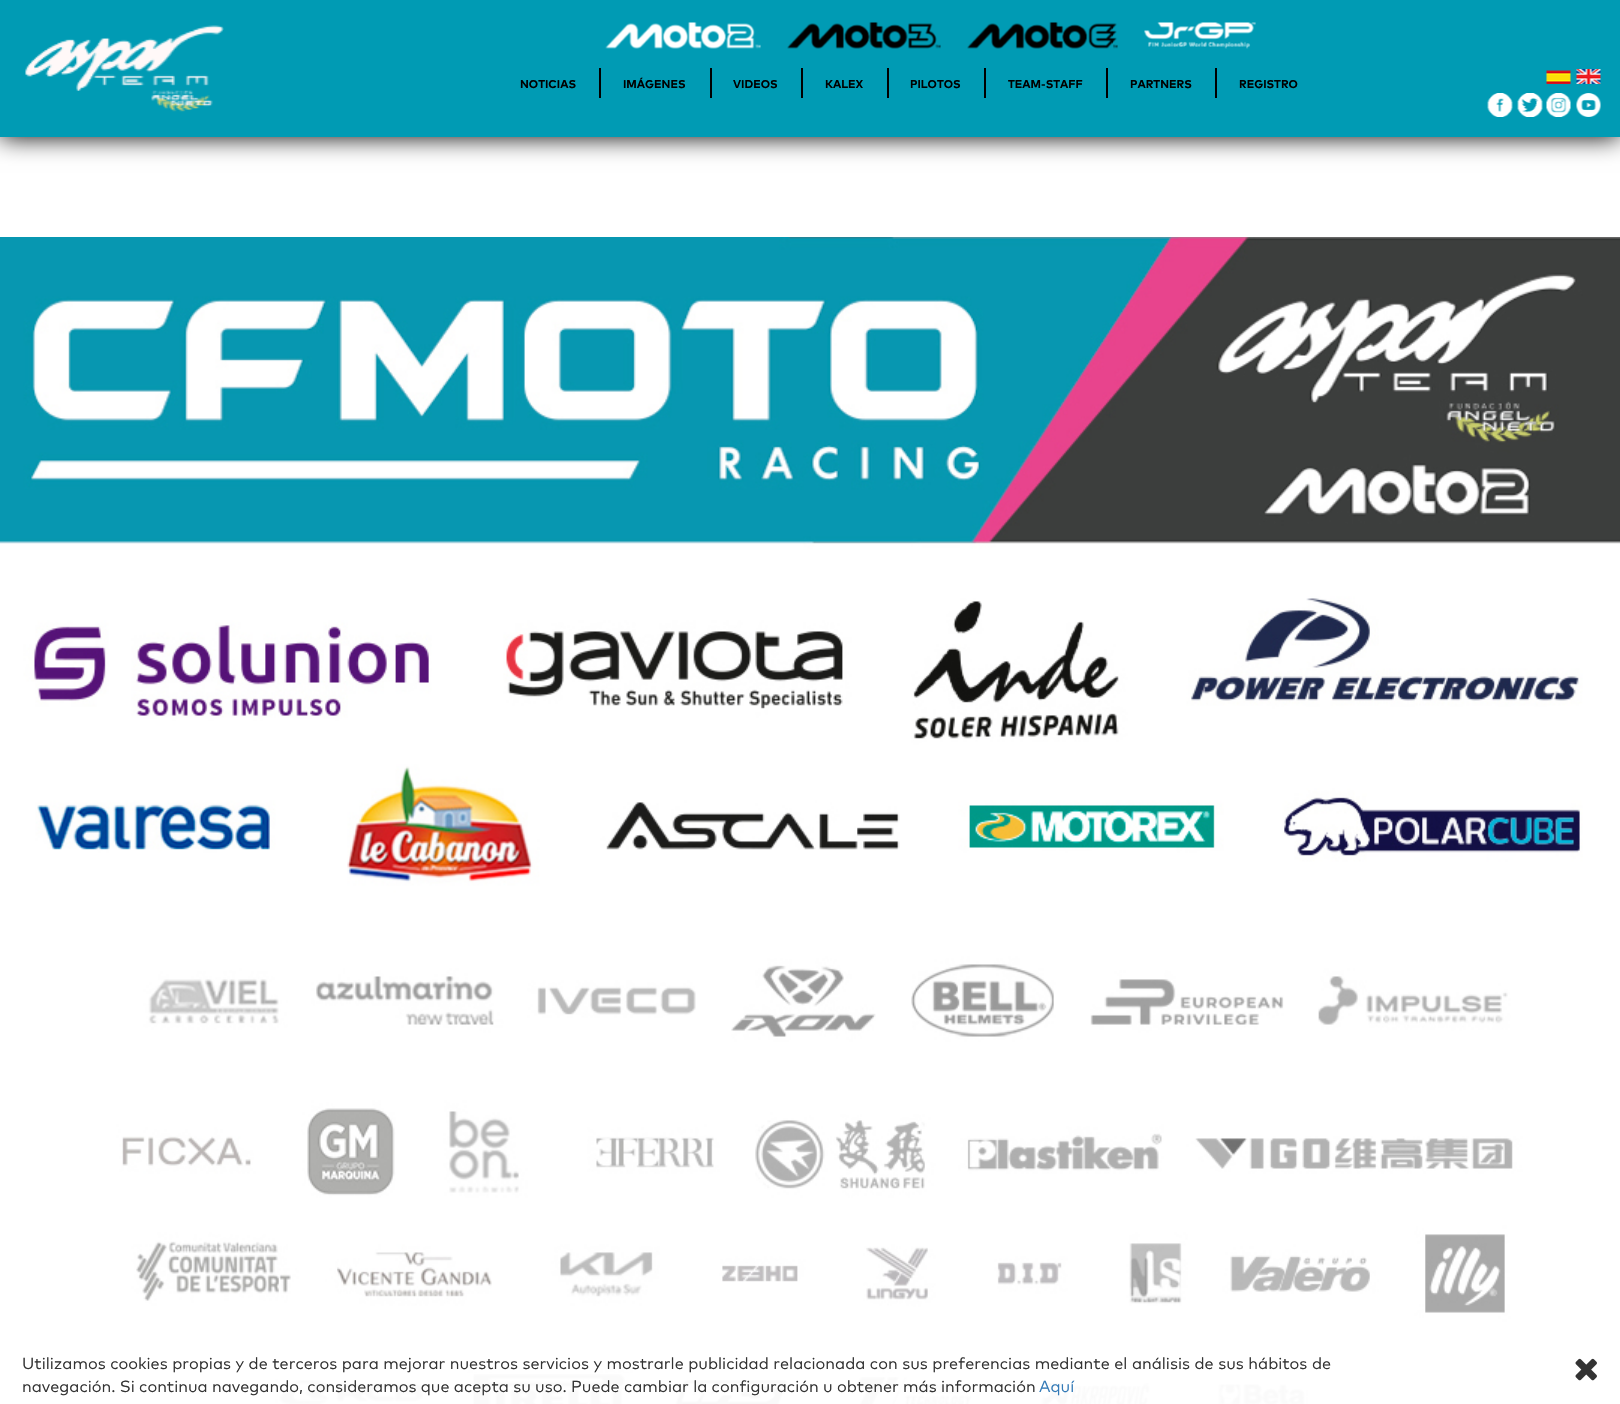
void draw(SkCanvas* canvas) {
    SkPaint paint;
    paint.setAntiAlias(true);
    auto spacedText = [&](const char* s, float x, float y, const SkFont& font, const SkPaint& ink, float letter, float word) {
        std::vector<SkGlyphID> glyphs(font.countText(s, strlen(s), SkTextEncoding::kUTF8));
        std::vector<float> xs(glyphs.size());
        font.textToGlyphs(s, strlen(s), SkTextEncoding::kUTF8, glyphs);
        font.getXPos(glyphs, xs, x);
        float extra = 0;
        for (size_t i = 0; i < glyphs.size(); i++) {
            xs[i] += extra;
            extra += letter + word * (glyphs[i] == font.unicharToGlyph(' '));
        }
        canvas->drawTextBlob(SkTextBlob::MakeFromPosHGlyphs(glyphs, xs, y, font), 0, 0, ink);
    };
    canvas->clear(0xFFFFFFFF);
    paint.setColor(0xFF000000);
    paint.setMaskFilter(SkMaskFilter::MakeBlur(kNormal_SkBlurStyle, 12));
    canvas->drawRect(SkRect::MakeXYWH(0, 0, 1620, 137), paint);
    paint.setMaskFilter(nullptr);
    paint.setColor(0xFF009BB4);
    canvas->drawRect(SkRect::MakeXYWH(0, 0, 1620, 137), paint);
    canvas->drawImageRect(SkImages::DeferredFromEncodedData(SkData::MakeFromFileName("img1.png")), SkRect::MakeXYWH(25, 25, 199, 87), SkSamplingOptions());
    canvas->drawImageRect(SkImages::DeferredFromEncodedData(SkData::MakeFromFileName("img2.png")), SkRect::MakeXYWH(605, 22, 156, 27), SkSamplingOptions());
    canvas->drawImageRect(SkImages::DeferredFromEncodedData(SkData::MakeFromFileName("img3.png")), SkRect::MakeXYWH(787, 22, 154, 27), SkSamplingOptions());
    canvas->drawImageRect(SkImages::DeferredFromEncodedData(SkData::MakeFromFileName("img4.png")), SkRect::MakeXYWH(967, 22, 151, 27), SkSamplingOptions());
    canvas->drawImageRect(SkImages::DeferredFromEncodedData(SkData::MakeFromFileName("img5.png")), SkRect::MakeXYWH(1144, 22, 112, 27), SkSamplingOptions());
    paint.setColor(0xFF000000);
    canvas->drawRect(SkRect::MakeXYWH(599, 68, 2, 30), paint);
    SkFont font1(fontMgr->matchFamilyStyle("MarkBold", SkFontStyle::Bold()), 11.25f);
    font1.setSubpixel(true);
    canvas->drawString("NOTICIAS", 520, 88, font1, paint);
    canvas->drawRect(SkRect::MakeXYWH(710, 68, 2, 30), paint);
    canvas->drawString("IMÁGENES", 623, 88, font1, paint);
    canvas->drawRect(SkRect::MakeXYWH(801, 68, 2, 30), paint);
    canvas->drawString("VIDEOS", 733, 88, font1, paint);
    canvas->drawRect(SkRect::MakeXYWH(887, 68, 2, 30), paint);
    canvas->drawString("KALEX", 825, 88, font1, paint);
    canvas->drawRect(SkRect::MakeXYWH(984, 68, 2, 30), paint);
    canvas->drawString("PILOTOS", 910, 88, font1, paint);
    canvas->drawRect(SkRect::MakeXYWH(1106, 68, 2, 30), paint);
    canvas->drawString("TEAM-STAFF", 1008, 88, font1, paint);
    canvas->drawRect(SkRect::MakeXYWH(1215, 68, 2, 30), paint);
    canvas->drawString("PARTNERS", 1130, 88, font1, paint);
    canvas->drawString("REGISTRO", 1239, 88, font1, paint);
    canvas->drawImageRect(SkImages::DeferredFromEncodedData(SkData::MakeFromFileName("img6.png")), SkRect::MakeXYWH(1546, 70, 25, 14), SkSamplingOptions());
    canvas->drawImageRect(SkImages::DeferredFromEncodedData(SkData::MakeFromFileName("img7.png")), SkRect::MakeXYWH(1576, 69, 25, 15), SkSamplingOptions());
    canvas->drawImageRect(SkImages::DeferredFromEncodedData(SkData::MakeFromFileName("img8.png")), SkRect::MakeXYWH(1487, 93, 26, 24), SkSamplingOptions());
    canvas->drawImageRect(SkImages::DeferredFromEncodedData(SkData::MakeFromFileName("img9.png")), SkRect::MakeXYWH(1517, 93, 26, 24), SkSamplingOptions());
    canvas->drawImageRect(SkImages::DeferredFromEncodedData(SkData::MakeFromFileName("img10.png")), SkRect::MakeXYWH(1546, 93, 25, 24), SkSamplingOptions());
    canvas->drawImageRect(SkImages::DeferredFromEncodedData(SkData::MakeFromFileName("img11.png")), SkRect::MakeXYWH(1576, 93, 25, 24), SkSamplingOptions());
    canvas->drawImageRect(SkImages::DeferredFromEncodedData(SkData::MakeFromFileName("img12.png")), SkRect::MakeXYWH(0, 237, 1620, 1167), SkSamplingOptions());
    paint.setColor(0xEBFFFFFF);
    canvas->drawRect(SkRect::MakeXYWH(278, 1373, 1028, 31), paint);
    SkFont font2(fontMgr->matchFamilyStyle("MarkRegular", SkFontStyle::Normal()), 16.2f);
    font2.setSubpixel(true);
    paint.setColor(0xFF333333);
    spacedText("Utilizamos cookies propias y de terceros para mejorar nuestros servicios y mostrarle publicidad relacionada con sus preferencias mediante el análisis de sus hábitos de", 22, 1369, font2, paint, 0, 0.2f);
    canvas->drawString("navegación. Si continua navegando, consideramos que acepta su uso. Puede cambiar la configuración u obtener más información", 22, 1392, font2, paint);
    paint.setColor(0xFF337AB7);
    canvas->drawString("Aquí", 1039, 1392, font2, paint);
    canvas->drawImageRect(SkImages::DeferredFromEncodedData(SkData::MakeFromFileName("img13.png")), SkRect::MakeXYWH(1575, 1358, 22, 23), SkSamplingOptions());
}
